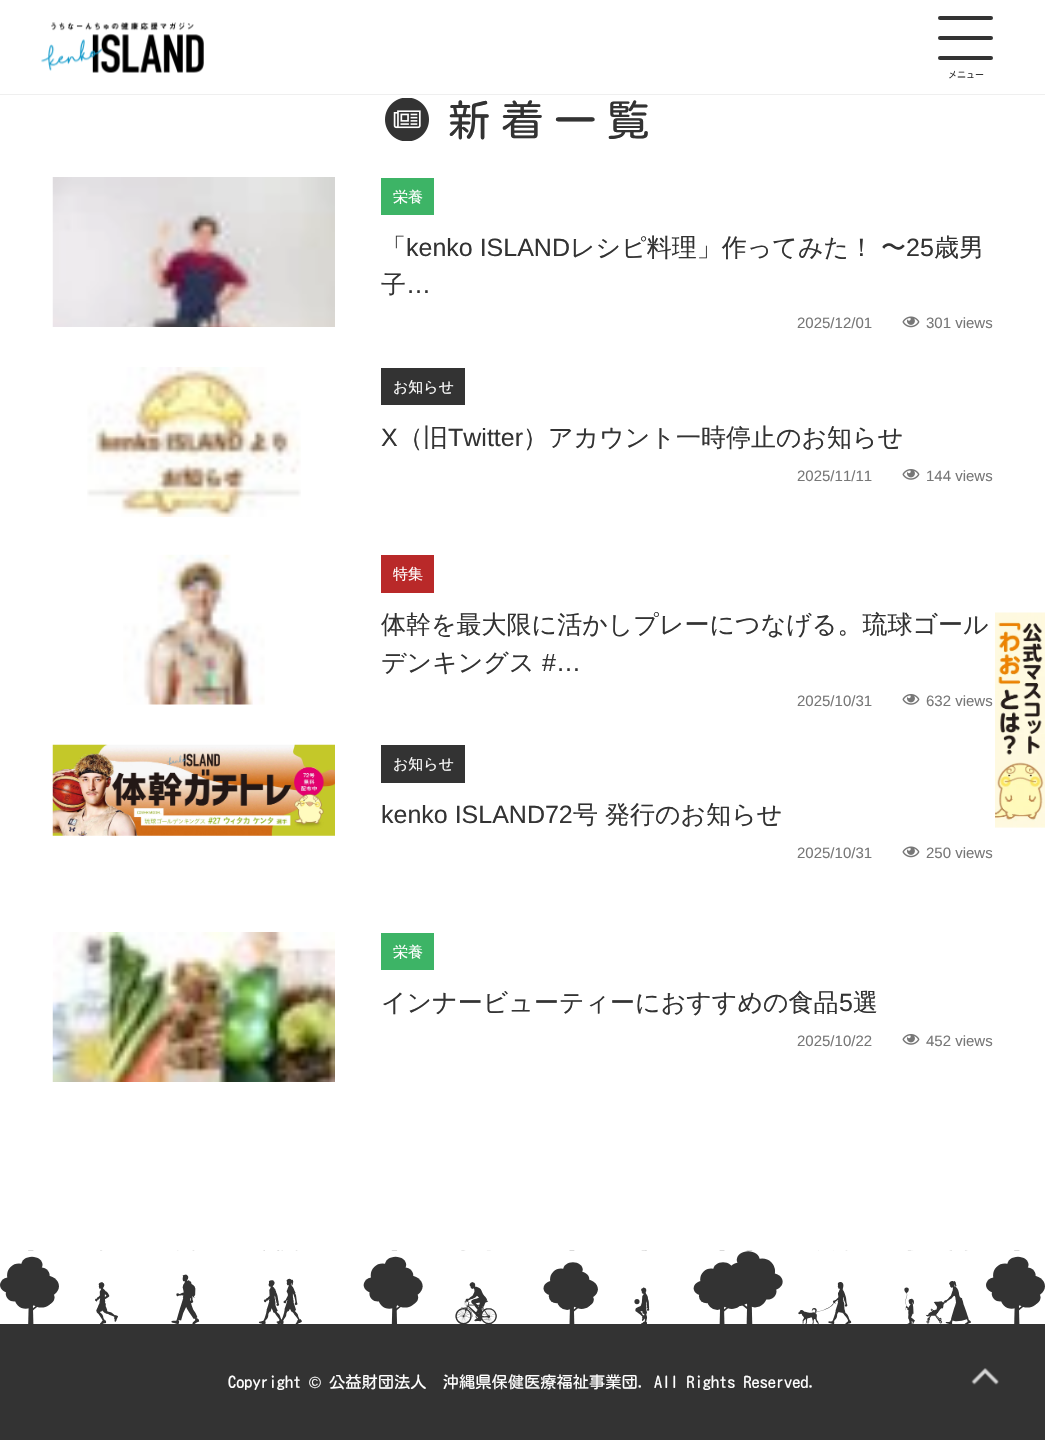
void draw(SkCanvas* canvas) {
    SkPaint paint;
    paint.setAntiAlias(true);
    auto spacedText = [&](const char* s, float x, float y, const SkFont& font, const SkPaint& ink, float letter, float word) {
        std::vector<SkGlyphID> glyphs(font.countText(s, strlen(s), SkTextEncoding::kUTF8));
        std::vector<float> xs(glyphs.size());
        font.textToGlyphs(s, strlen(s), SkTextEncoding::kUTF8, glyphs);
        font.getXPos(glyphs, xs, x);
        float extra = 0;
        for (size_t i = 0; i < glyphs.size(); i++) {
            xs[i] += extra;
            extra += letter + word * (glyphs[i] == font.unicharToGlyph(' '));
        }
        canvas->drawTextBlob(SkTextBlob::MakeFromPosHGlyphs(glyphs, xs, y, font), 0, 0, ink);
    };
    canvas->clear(0xFFFFFFFF);
    paint.setColor(0xFFEFEFEF);
    canvas->drawRect(SkRect::MakeXYWH(0, 94, 1045, 1), paint);
    canvas->drawImageRect(SkImages::DeferredFromEncodedData(SkData::MakeFromFileName("img1.png")), SkRect::MakeXYWH(41, 22, 163, 51), SkSamplingOptions());
    paint.setColor(0xFF333333);
    canvas->drawRoundRect(SkRect::MakeXYWH(938, 16, 55, 4), 2, 2, paint);
    canvas->drawRoundRect(SkRect::MakeXYWH(938, 36, 55, 4), 2, 2, paint);
    canvas->drawRoundRect(SkRect::MakeXYWH(938, 56, 55, 4), 2, 2, paint);
    SkFont font1(fontMgr->matchFamilyStyle("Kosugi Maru", SkFontStyle::Normal()), 9);
    font1.setSubpixel(true);
    canvas->drawString("メニュー", 948, 78, font1, paint);
    canvas->drawImageRect(SkImages::DeferredFromEncodedData(SkData::MakeFromFileName("img2.png")), SkRect::MakeXYWH(385, 98, 44, 43), SkSamplingOptions());
    SkFont font2(fontMgr->matchFamilyStyle("Kosugi Maru", SkFontStyle::Normal()), 42.5f);
    font2.setSubpixel(true);
    spacedText("新着一覧", 448, 136, font2, paint, 10.5f, 0);
    canvas->drawImageRect(SkImages::DeferredFromEncodedData(SkData::MakeFromFileName("img3.png")), SkRect::MakeXYWH(52, 177, 283, 150), SkSamplingOptions());
    paint.setColor(0xFF3DB466);
    canvas->drawRect(SkRect::MakeXYWH(381, 178, 53, 37), paint);
    SkFont font3(fontMgr->matchFamilyStyle("WenQuanYi Zen Hei", SkFontStyle(500, SkFontStyle::kNormal_Width, SkFontStyle::kUpright_Slant)), 15);
    font3.setSubpixel(true);
    paint.setColor(0xFFFFFFFF);
    canvas->drawString("栄養", 393, 202, font3, paint);
    SkFont font4(fontMgr->matchFamilyStyle("WenQuanYi Zen Hei", SkFontStyle(500, SkFontStyle::kNormal_Width, SkFontStyle::kUpright_Slant)), 25);
    font4.setSubpixel(true);
    paint.setColor(0xFF333333);
    canvas->drawString("「", 381, 256, font4, paint);
    SkFont font5(fontMgr->matchFamilyStyle("Liberation Sans", SkFontStyle::Normal()), 25);
    font5.setSubpixel(true);
    canvas->drawString("kenko ISLAND", 406, 256, font5, paint);
    canvas->drawString("レシピ料理」作ってみた！", 570, 256, font4, paint);
    canvas->drawString("〜", 881, 256, font4, paint);
    canvas->drawString("25", 906, 256, font5, paint);
    canvas->drawString("歳男", 934, 256, font4, paint);
    canvas->drawString("子", 381, 293, font4, paint);
    canvas->drawString("…", 406, 293, font5, paint);
    SkFont font6(fontMgr->matchFamilyStyle("Liberation Sans", SkFontStyle::Normal()), 15);
    font6.setSubpixel(true);
    paint.setColor(0xFF777777);
    canvas->drawString("2025/12/01", 797, 328, font6, paint);
    canvas->drawImageRect(SkImages::DeferredFromEncodedData(SkData::MakeFromFileName("img4.png")), SkRect::MakeXYWH(902, 316, 18, 12), SkSamplingOptions());
    canvas->drawString("301 views", 926, 328, font6, paint);
    canvas->drawImageRect(SkImages::DeferredFromEncodedData(SkData::MakeFromFileName("img5.png")), SkRect::MakeXYWH(87, 367, 214, 150), SkSamplingOptions());
    paint.setColor(0xFF333333);
    canvas->drawRect(SkRect::MakeXYWH(381, 368, 84, 37), paint);
    paint.setColor(0xFFFFFFFF);
    canvas->drawString("お知らせ", 393, 392, font3, paint);
    paint.setColor(0xFF333333);
    canvas->drawString("X", 381, 446, font5, paint);
    canvas->drawString("（旧", 398, 446, font4, paint);
    canvas->drawString("Twitter", 448, 446, font5, paint);
    canvas->drawString("）アカウント一時停止のお知らせ", 523, 446, font4, paint);
    paint.setColor(0xFF777777);
    canvas->drawString("2025/11/11", 797, 481, font6, paint);
    canvas->drawImageRect(SkImages::DeferredFromEncodedData(SkData::MakeFromFileName("img6.png")), SkRect::MakeXYWH(902, 469, 18, 11), SkSamplingOptions());
    canvas->drawString("144 views", 926, 481, font6, paint);
    canvas->drawImageRect(SkImages::DeferredFromEncodedData(SkData::MakeFromFileName("img7.png")), SkRect::MakeXYWH(123, 554, 142, 151), SkSamplingOptions());
    paint.setColor(0xFFB92929);
    canvas->drawRect(SkRect::MakeXYWH(381, 555, 53, 38), paint);
    paint.setColor(0xFFFFFFFF);
    canvas->drawString("特集", 393, 579, font3, paint);
    paint.setColor(0xFF333333);
    canvas->drawString("体幹を最大限に活かしプレーにつなげる。琉球ゴール", 381, 633, font4, paint);
    canvas->drawString("デンキングス", 381, 671, font4, paint);
    canvas->drawString("#…", 542, 671, font5, paint);
    paint.setColor(0xFF777777);
    canvas->drawString("2025/10/31", 797, 706, font6, paint);
    canvas->drawImageRect(SkImages::DeferredFromEncodedData(SkData::MakeFromFileName("img6.png")), SkRect::MakeXYWH(902, 694, 18, 11), SkSamplingOptions());
    canvas->drawString("632 views", 926, 706, font6, paint);
    canvas->drawImageRect(SkImages::DeferredFromEncodedData(SkData::MakeFromFileName("img8.png")), SkRect::MakeXYWH(52, 744, 283, 92), SkSamplingOptions());
    paint.setColor(0xFF333333);
    canvas->drawRect(SkRect::MakeXYWH(381, 745, 84, 38), paint);
    paint.setColor(0xFFFFFFFF);
    canvas->drawString("お知らせ", 393, 769, font3, paint);
    paint.setColor(0xFF333333);
    canvas->drawString("kenko ISLAND72", 381, 823, font5, paint);
    canvas->drawString("号", 573, 823, font4, paint);
    canvas->drawString("発行のお知らせ", 605, 823, font4, paint);
    paint.setColor(0xFF777777);
    canvas->drawString("2025/10/31", 797, 858, font6, paint);
    canvas->drawImageRect(SkImages::DeferredFromEncodedData(SkData::MakeFromFileName("img4.png")), SkRect::MakeXYWH(902, 846, 18, 12), SkSamplingOptions());
    canvas->drawString("250 views", 926, 858, font6, paint);
    canvas->drawImageRect(SkImages::DeferredFromEncodedData(SkData::MakeFromFileName("img9.png")), SkRect::MakeXYWH(52, 932, 283, 150), SkSamplingOptions());
    paint.setColor(0xFF3DB466);
    canvas->drawRect(SkRect::MakeXYWH(381, 933, 53, 37), paint);
    paint.setColor(0xFFFFFFFF);
    canvas->drawString("栄養", 393, 957, font3, paint);
    paint.setColor(0xFF333333);
    canvas->drawString("インナービューティーにおすすめの食品", 381, 1011, font4, paint);
    canvas->drawString("5", 839, 1011, font5, paint);
    canvas->drawString("選", 853, 1011, font4, paint);
    paint.setColor(0xFF777777);
    canvas->drawString("2025/10/22", 797, 1046, font6, paint);
    canvas->drawImageRect(SkImages::DeferredFromEncodedData(SkData::MakeFromFileName("img6.png")), SkRect::MakeXYWH(902, 1034, 18, 11), SkSamplingOptions());
    canvas->drawString("452 views", 926, 1046, font6, paint);
    canvas->drawImageRect(SkImages::DeferredFromEncodedData(SkData::MakeFromFileName("img10.png")), SkRect::MakeXYWH(995, 612, 50, 216), SkSamplingOptions());
    canvas->drawImageRect(SkImages::DeferredFromEncodedData(SkData::MakeFromFileName("img11.png")), SkRect::MakeXYWH(0, 1250, 1045, 74), SkSamplingOptions());
    paint.setColor(0xFF333333);
    canvas->drawRect(SkRect::MakeXYWH(0, 1324, 1045, 116), paint);
    SkFont font7(fontMgr->matchFamilyStyle("Kosugi Maru", SkFontStyle::Normal()), 16.25f);
    font7.setSubpixel(true);
    paint.setColor(0xFFFFFFFF);
    canvas->drawString("Copyright", 228, 1388, font7, paint);
    SkFont font8(fontMgr->matchFamilyStyle("Liberation Sans", SkFontStyle::Normal()), 16.25f);
    font8.setSubpixel(true);
    canvas->drawString("©", 309, 1388, font8, paint);
    canvas->drawString("公益財団法人　沖縄県保健医療福祉事業団. All Rights Reserved.", 329, 1388, font7, paint);
    canvas->drawImageRect(SkImages::DeferredFromEncodedData(SkData::MakeFromFileName("img12.png")), SkRect::MakeXYWH(971, 1368, 28, 17), SkSamplingOptions());
}
